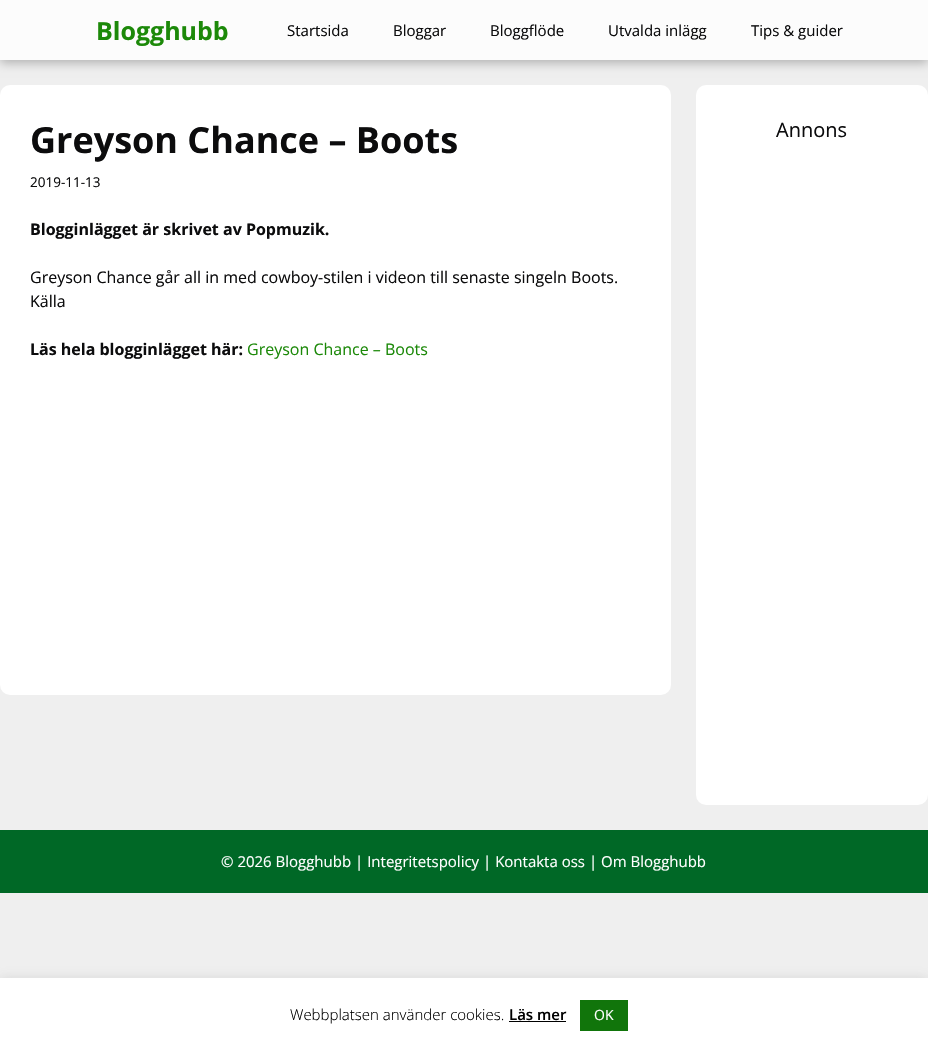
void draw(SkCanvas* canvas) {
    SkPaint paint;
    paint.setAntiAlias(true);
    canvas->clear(0xFFEFEFEF);
    paint.setColor(0xFFB0B0B0);
    paint.setMaskFilter(SkMaskFilter::MakeBlur(kNormal_SkBlurStyle, 5));
    canvas->drawRect(SkRect::MakeXYWH(0, 3, 928, 60), paint);
    paint.setMaskFilter(nullptr);
    paint.setColor(0xFFFCFCFC);
    canvas->drawRect(SkRect::MakeXYWH(0, 0, 928, 60), paint);
    SkFont font1(fontMgr->matchFamilyStyle("Open Sans", SkFontStyle::Bold()), 25);
    font1.setSubpixel(true);
    paint.setColor(0xFF1C8909);
    canvas->drawString("Blogghubb", 96, 40, font1, paint);
    SkFont font2(fontMgr->matchFamilyStyle("Open Sans", SkFontStyle::Normal()), 15);
    font2.setSubpixel(true);
    paint.setColor(0xFF0C0C0D);
    canvas->drawString("Startsida", 287, 36, font2, paint);
    canvas->drawString("Bloggar", 393, 36, font2, paint);
    canvas->drawString("Bloggflöde", 490, 36, font2, paint);
    canvas->drawString("Utvalda inlägg", 608, 36, font2, paint);
    canvas->drawString("Tips & guider", 751, 36, font2, paint);
    paint.setColor(0xFFFFFFFF);
    canvas->drawRoundRect(SkRect::MakeXYWH(0, 85, 671, 610), 10, 10, paint);
    SkFont font3(fontMgr->matchFamilyStyle("Open Sans", SkFontStyle::Bold()), 36);
    font3.setSubpixel(true);
    paint.setColor(0xFF0C0C0D);
    canvas->drawString("Greyson Chance – Boots", 30, 153, font3, paint);
    SkFont font4(fontMgr->matchFamilyStyle("Open Sans", SkFontStyle::Normal()), 13.5f);
    font4.setSubpixel(true);
    canvas->drawString("2019-11-13", 30, 187, font4, paint);
    SkFont font5(fontMgr->matchFamilyStyle("Open Sans", SkFontStyle::Bold()), 16);
    font5.setSubpixel(true);
    canvas->drawString("Blogginlägget är skrivet av Popmuzik.", 30, 235, font5, paint);
    SkFont font6(fontMgr->matchFamilyStyle("Open Sans", SkFontStyle::Normal()), 16);
    font6.setSubpixel(true);
    canvas->drawString("Greyson Chance går all in med cowboy-stilen i videon till senaste singeln Boots.", 30, 283, font6, paint);
    canvas->drawString("Källa", 30, 307, font6, paint);
    canvas->drawString("Läs hela blogginlägget här:", 30, 355, font5, paint);
    paint.setColor(0xFF1C8909);
    canvas->drawString("Greyson Chance – Boots", 247, 355, font6, paint);
    paint.setColor(0xFFFFFFFF);
    canvas->drawRoundRect(SkRect::MakeXYWH(696, 85, 232, 720), 10, 10, paint);
    SkFont font7(fontMgr->matchFamilyStyle("Open Sans", SkFontStyle::Normal()), 20);
    font7.setSubpixel(true);
    paint.setColor(0xFF0C0C0D);
    canvas->drawString("Annons", 776, 137, font7, paint);
    paint.setColor(0xFF006826);
    canvas->drawRect(SkRect::MakeXYWH(0, 830, 928, 63), paint);
    paint.setColor(0xFFFFFFFF);
    canvas->drawString("© 2026 Blogghubb | Integritetspolicy | Kontakta oss | Om Blogghubb", 221, 867, font2, paint);
    paint.setColor(0x4DACABAB);
    paint.setMaskFilter(SkMaskFilter::MakeBlur(kNormal_SkBlurStyle, 5));
    canvas->drawRect(SkRect::MakeXYWH(0, 977, 928, 75), paint);
    paint.setMaskFilter(nullptr);
    paint.setColor(0xFFFFFFFF);
    canvas->drawRect(SkRect::MakeXYWH(0, 978, 928, 75), paint);
    SkFont font8(fontMgr->matchFamilyStyle("Open Sans", SkFontStyle(300, SkFontStyle::kNormal_Width, SkFontStyle::kUpright_Slant)), 15);
    font8.setSubpixel(true);
    paint.setColor(0xFF000000);
    canvas->drawString("Webbplatsen använder cookies.", 290, 1020, font8, paint);
    SkFont font9(fontMgr->matchFamilyStyle("Open Sans", SkFontStyle(600, SkFontStyle::kNormal_Width, SkFontStyle::kUpright_Slant)), 15);
    font9.setSubpixel(true);
    canvas->drawString("Läs mer", 509, 1020, font9, paint);
    canvas->drawRect(SkRect::MakeXYWH(509, 1021, 57, 1), paint);
    paint.setColor(0xFF11750B);
    canvas->drawRect(SkRect::MakeXYWH(580, 1000, 48, 31), paint);
    SkFont font10(fontMgr->matchFamilyStyle("Open Sans", SkFontStyle::Normal()), 14);
    font10.setSubpixel(true);
    paint.setColor(0xFFFFFFFF);
    canvas->drawString("OK", 594, 1020, font10, paint);
}
